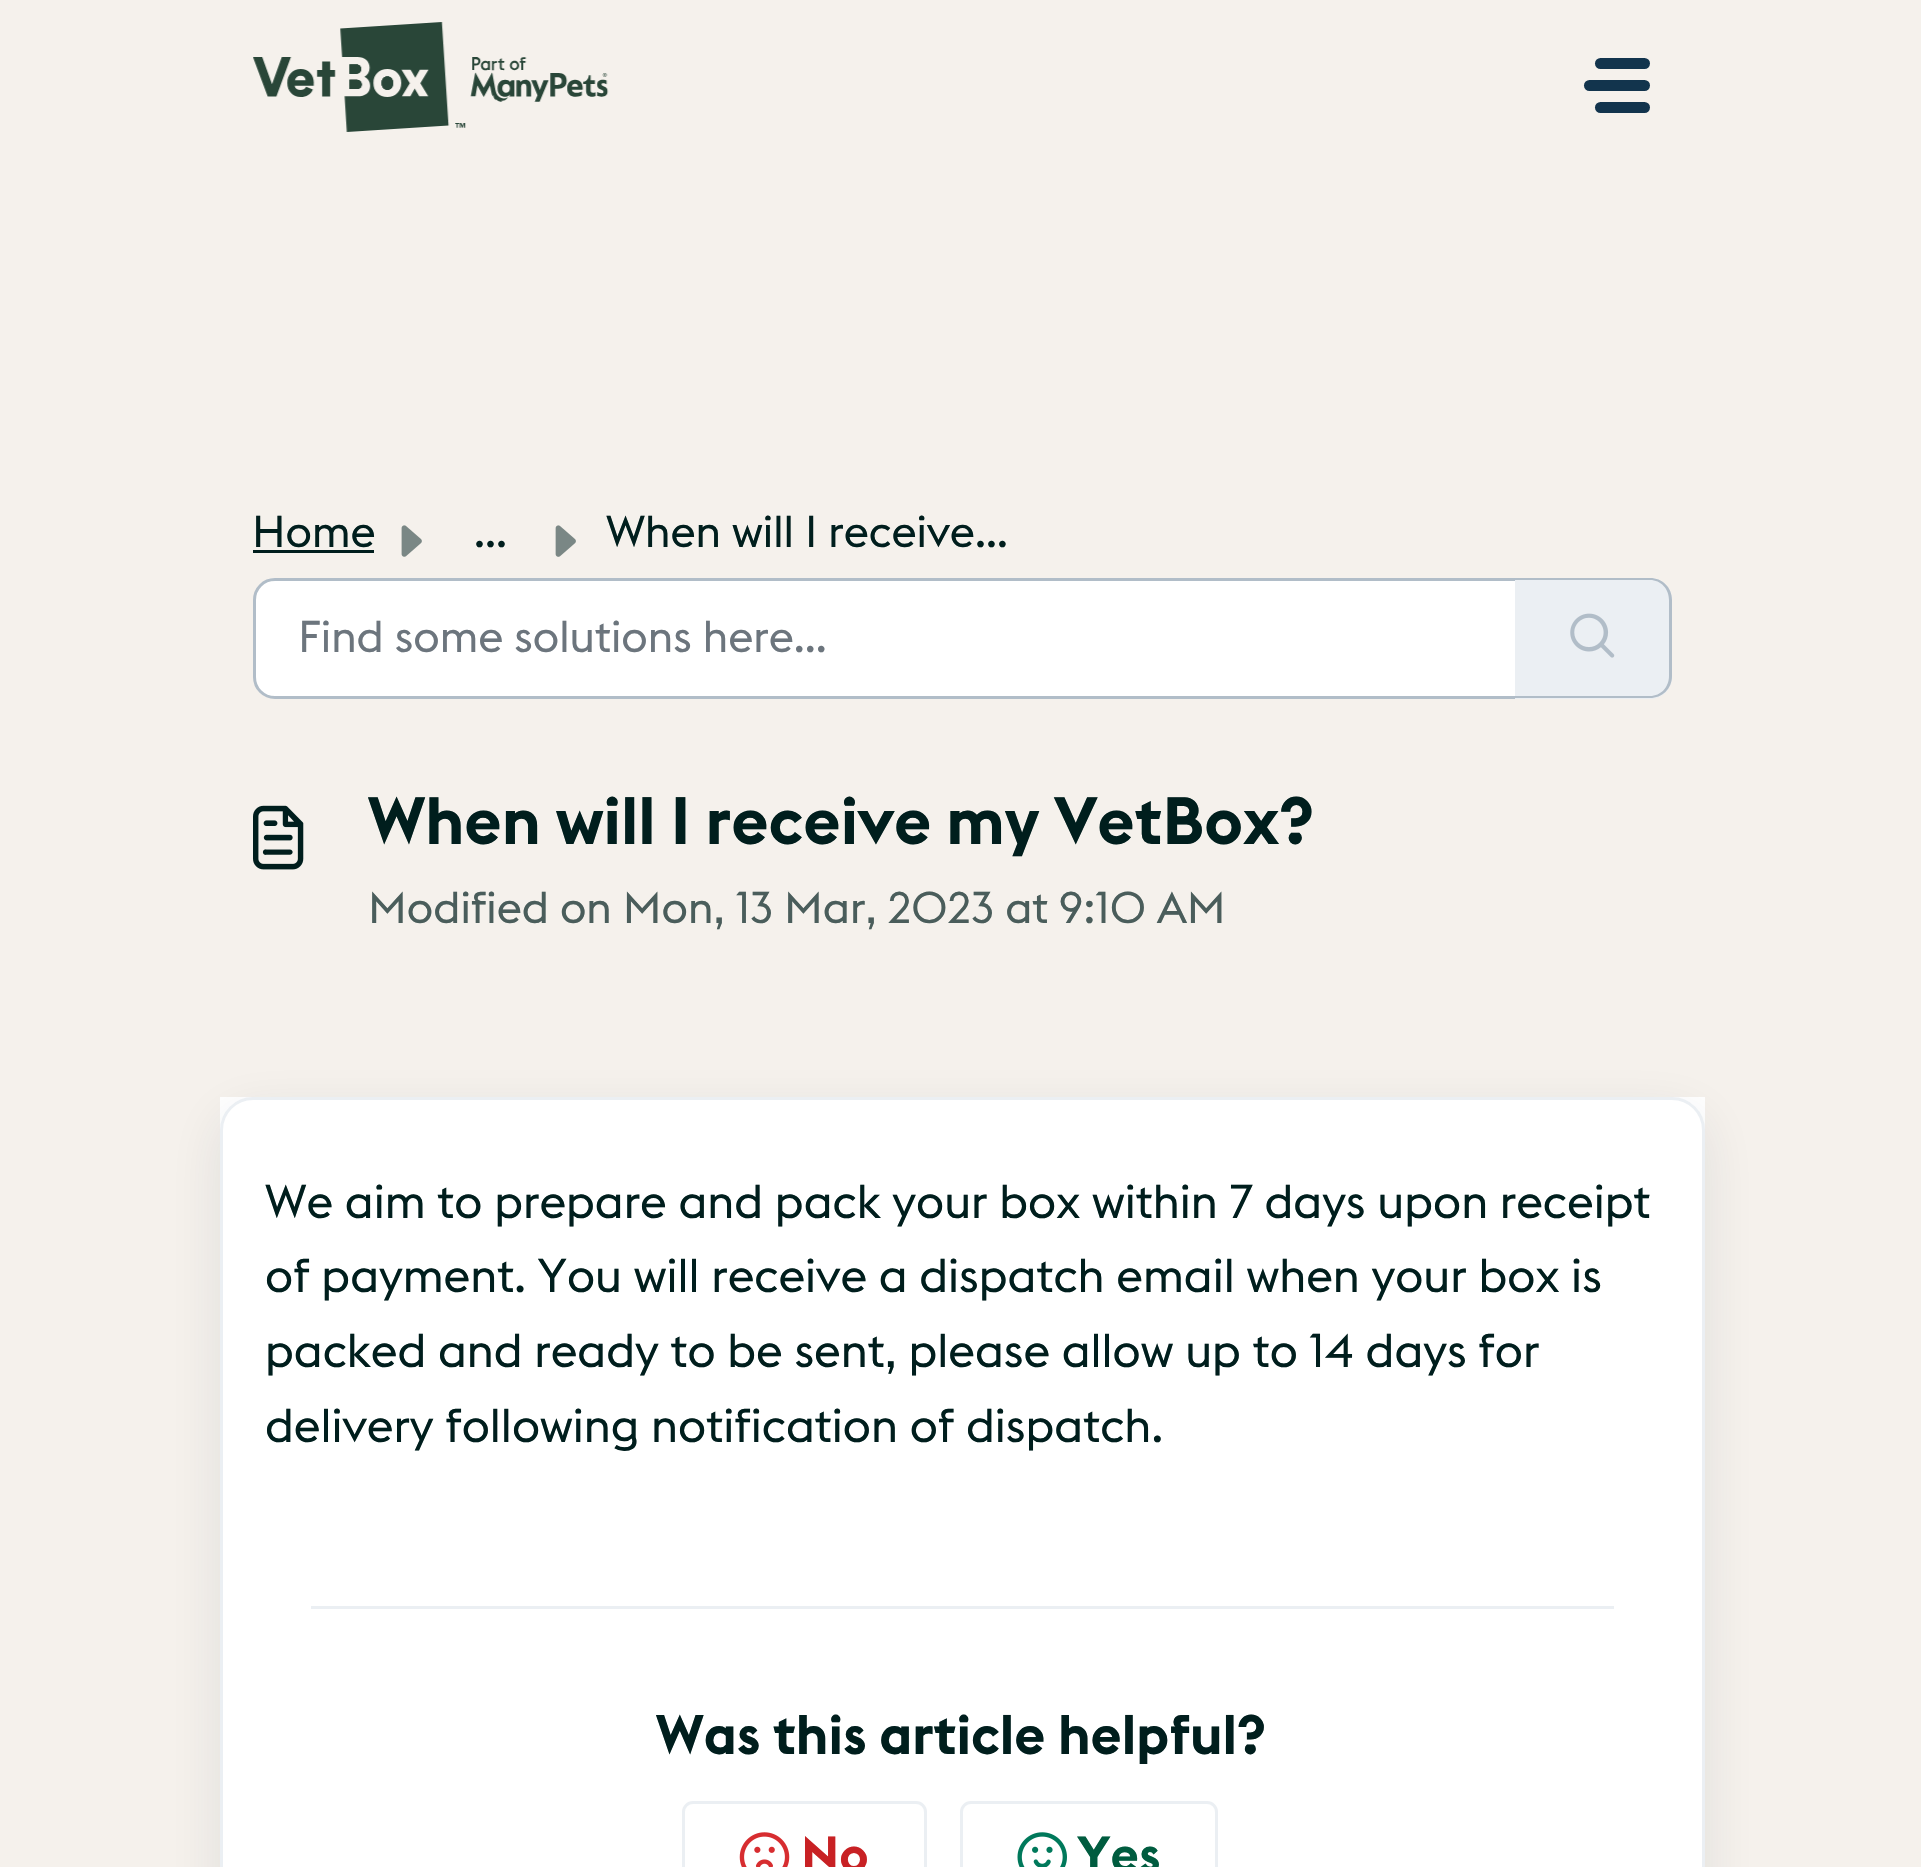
void draw(SkCanvas* canvas) {
    SkPaint paint;
    paint.setAntiAlias(true);
    canvas->clear(0xFFF5F1EC);
    canvas->drawImageRect(SkImages::DeferredFromEncodedData(SkData::MakeFromFileName("img1.png")), SkRect::MakeXYWH(253, 22, 356, 110), SkSamplingOptions());
    paint.setColor(0xFF12344D);
    canvas->drawRoundRect(SkRect::MakeXYWH(1595, 58, 55, 11), 5.5f, 5.5f, paint);
    canvas->drawRoundRect(SkRect::MakeXYWH(1584, 80, 66, 11), 5.5f, 5.5f, paint);
    canvas->drawRoundRect(SkRect::MakeXYWH(1595, 102, 55, 11), 5.5f, 5.5f, paint);
    SkFont font1(fontMgr->matchFamilyStyle("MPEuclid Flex", SkFontStyle::Normal()), 44);
    font1.setSubpixel(true);
    paint.setColor(0xFF001E1D);
    canvas->drawString("Home", 252, 547, font1, paint);
    canvas->drawRect(SkRect::MakeXYWH(253, 550, 121, 3), paint);
    canvas->drawImageRect(SkImages::DeferredFromEncodedData(SkData::MakeFromFileName("img2.png")), SkRect::MakeXYWH(401, 525, 21, 32), SkSamplingOptions());
    canvas->drawString("...", 474, 547, font1, paint);
    canvas->drawImageRect(SkImages::DeferredFromEncodedData(SkData::MakeFromFileName("img3.png")), SkRect::MakeXYWH(555, 525, 21, 32), SkSamplingOptions());
    canvas->drawString("When will I receive…", 606, 547, font1, paint);
    paint.setColor(0xFFFFFFFF);
    canvas->drawPath(SkPathBuilder().moveTo(275, 579.5f).lineTo(1516.5f, 579.5f).lineTo(1516.5f, 697.5f).lineTo(275, 697.5f).cubicTo(263.5f, 697.5f, 254.5f, 688.5f, 254.5f, 677).lineTo(254.5f, 600).cubicTo(254.5f, 588.5f, 263.5f, 579.5f, 275, 579.5f).close().detach(), paint);
    paint.setStyle(SkPaint::kStroke_Style);
    paint.setStrokeWidth(3);
    paint.setColor(0xFFB1BDC8);
    canvas->drawPath(SkPathBuilder().moveTo(275, 579.5f).lineTo(1516.5f, 579.5f).lineTo(1516.5f, 697.5f).lineTo(275, 697.5f).cubicTo(263.5f, 697.5f, 254.5f, 688.5f, 254.5f, 677).lineTo(254.5f, 600).cubicTo(254.5f, 588.5f, 263.5f, 579.5f, 275, 579.5f).close().detach(), paint);
    paint.setStyle(SkPaint::kFill_Style);
    paint.setColor(0xFF6C757D);
    canvas->drawString("Find some solutions here...", 298, 652, font1, paint);
    paint.setColor(0xFFEBEFF3);
    canvas->drawPath(SkPathBuilder().moveTo(1515, 578).lineTo(1650, 578).cubicTo(1662, 578, 1672, 588, 1672, 600).lineTo(1672, 677).cubicTo(1672, 689, 1662, 699, 1650, 699).lineTo(1515, 699).close().detach(), paint);
    paint.setColor(0xFFB1BDC8);
    canvas->drawPath(SkPathBuilder(SkPathFillType::kEvenOdd).moveTo(1515, 578).lineTo(1650, 578).cubicTo(1662, 578, 1672, 587, 1672, 600).lineTo(1672, 676).cubicTo(1672, 689, 1662, 698, 1650, 698).lineTo(1515, 698).close().moveTo(1515, 580).lineTo(1650, 580).cubicTo(1661, 580, 1669, 589, 1669, 600).lineTo(1669, 676).cubicTo(1669, 687, 1661, 696, 1650, 696).lineTo(1515, 696).close().detach(), paint);
    canvas->drawImageRect(SkImages::DeferredFromEncodedData(SkData::MakeFromFileName("img4.png")), SkRect::MakeXYWH(1570, 613, 45, 45), SkSamplingOptions());
    canvas->drawImageRect(SkImages::DeferredFromEncodedData(SkData::MakeFromFileName("img5.png")), SkRect::MakeXYWH(253, 805, 51, 65), SkSamplingOptions());
    SkFont font2(fontMgr->matchFamilyStyle("MPEuclid Flex", SkFontStyle(600, SkFontStyle::kNormal_Width, SkFontStyle::kUpright_Slant)), 66);
    font2.setSubpixel(true);
    paint.setColor(0xFF001E1D);
    canvas->drawString("When will I receive my VetBox?", 368, 844, font2, paint);
    paint.setColor(0xFF4A5D5B);
    canvas->drawString("Modified on Mon, 13 Mar, 2023 at 9:10 AM", 368, 923, font1, paint);
    paint.setColor(0xFFFFFFFF);
    canvas->drawRect(SkRect::MakeXYWH(220, 1097, 1485, 770), paint);
    canvas->save();
    canvas->clipPath(SkPathBuilder(SkPathFillType::kEvenOdd).moveTo(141, 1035).lineTo(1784, 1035).lineTo(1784, 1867).lineTo(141, 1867).close().moveTo(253, 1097).lineTo(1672, 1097).cubicTo(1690, 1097, 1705, 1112, 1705, 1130).lineTo(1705, 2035).cubicTo(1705, 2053, 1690, 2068, 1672, 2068).lineTo(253, 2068).cubicTo(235, 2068, 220, 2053, 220, 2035).lineTo(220, 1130).cubicTo(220, 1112, 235, 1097, 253, 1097).close().detach(), true);
    paint.setColor(0x1A27313A);
    paint.setMaskFilter(SkMaskFilter::MakeBlur(kNormal_SkBlurStyle, 26));
    canvas->drawRoundRect(SkRect::MakeXYWH(220, 1114, 1485, 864), 33, 33, paint);
    paint.setMaskFilter(nullptr);
    canvas->restore();
    paint.setStyle(SkPaint::kStroke_Style);
    paint.setColor(0xFFEBEFF3);
    canvas->drawRoundRect(SkRect::MakeXYWH(221.5f, 1098.5f, 1482, 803), 31.5f, 31.5f, paint);
    SkFont font3(fontMgr->matchFamilyStyle("MPEuclid Flex", SkFontStyle::Normal()), 46.75f);
    font3.setSubpixel(true);
    paint.setStyle(SkPaint::kFill_Style);
    paint.setColor(0xFF001E1D);
    canvas->drawString("We aim to prepare and pack your box within 7 days upon receipt", 265, 1218, font3, paint);
    canvas->drawString("of payment. You will receive a dispatch email when your box is", 265, 1292, font3, paint);
    canvas->drawString("packed and ready to be sent, please allow up to 14 days for", 265, 1367, font3, paint);
    canvas->drawString("delivery following notification of dispatch.", 265, 1442, font3, paint);
    paint.setColor(0xFFEBEFF3);
    canvas->drawRect(SkRect::MakeXYWH(311, 1606, 1303, 3), paint);
    SkFont font4(fontMgr->matchFamilyStyle("MPEuclid Flex", SkFontStyle(600, SkFontStyle::kNormal_Width, SkFontStyle::kUpright_Slant)), 55);
    font4.setSubpixel(true);
    paint.setColor(0xFF001E1D);
    canvas->drawString("Was this article helpful?", 656, 1754, font4, paint);
    paint.setStyle(SkPaint::kStroke_Style);
    paint.setColor(0xFFEBEFF3);
    canvas->drawRoundRect(SkRect::MakeXYWH(683.5f, 1802.5f, 242, 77), 9.5f, 9.5f, paint);
    canvas->drawImageRect(SkImages::DeferredFromEncodedData(SkData::MakeFromFileName("img6.png")), SkRect::MakeXYWH(739, 1832, 51, 35), SkSamplingOptions());
    SkFont font5(fontMgr->matchFamilyStyle("MPEuclid Flex", SkFontStyle(600, SkFontStyle::kNormal_Width, SkFontStyle::kUpright_Slant)), 50);
    font5.setSubpixel(true);
    paint.setStyle(SkPaint::kFill_Style);
    paint.setColor(0xFFC82124);
    canvas->drawString("No", 801, 1872, font5, paint);
    paint.setStyle(SkPaint::kStroke_Style);
    paint.setColor(0xFFEBEFF3);
    canvas->drawRoundRect(SkRect::MakeXYWH(961.5f, 1802.5f, 255, 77), 9.5f, 9.5f, paint);
    canvas->drawImageRect(SkImages::DeferredFromEncodedData(SkData::MakeFromFileName("img7.png")), SkRect::MakeXYWH(1017, 1832, 50, 35), SkSamplingOptions());
    paint.setStyle(SkPaint::kFill_Style);
    paint.setColor(0xFF005C3F);
    canvas->drawString("Yes", 1077, 1872, font5, paint);
}
